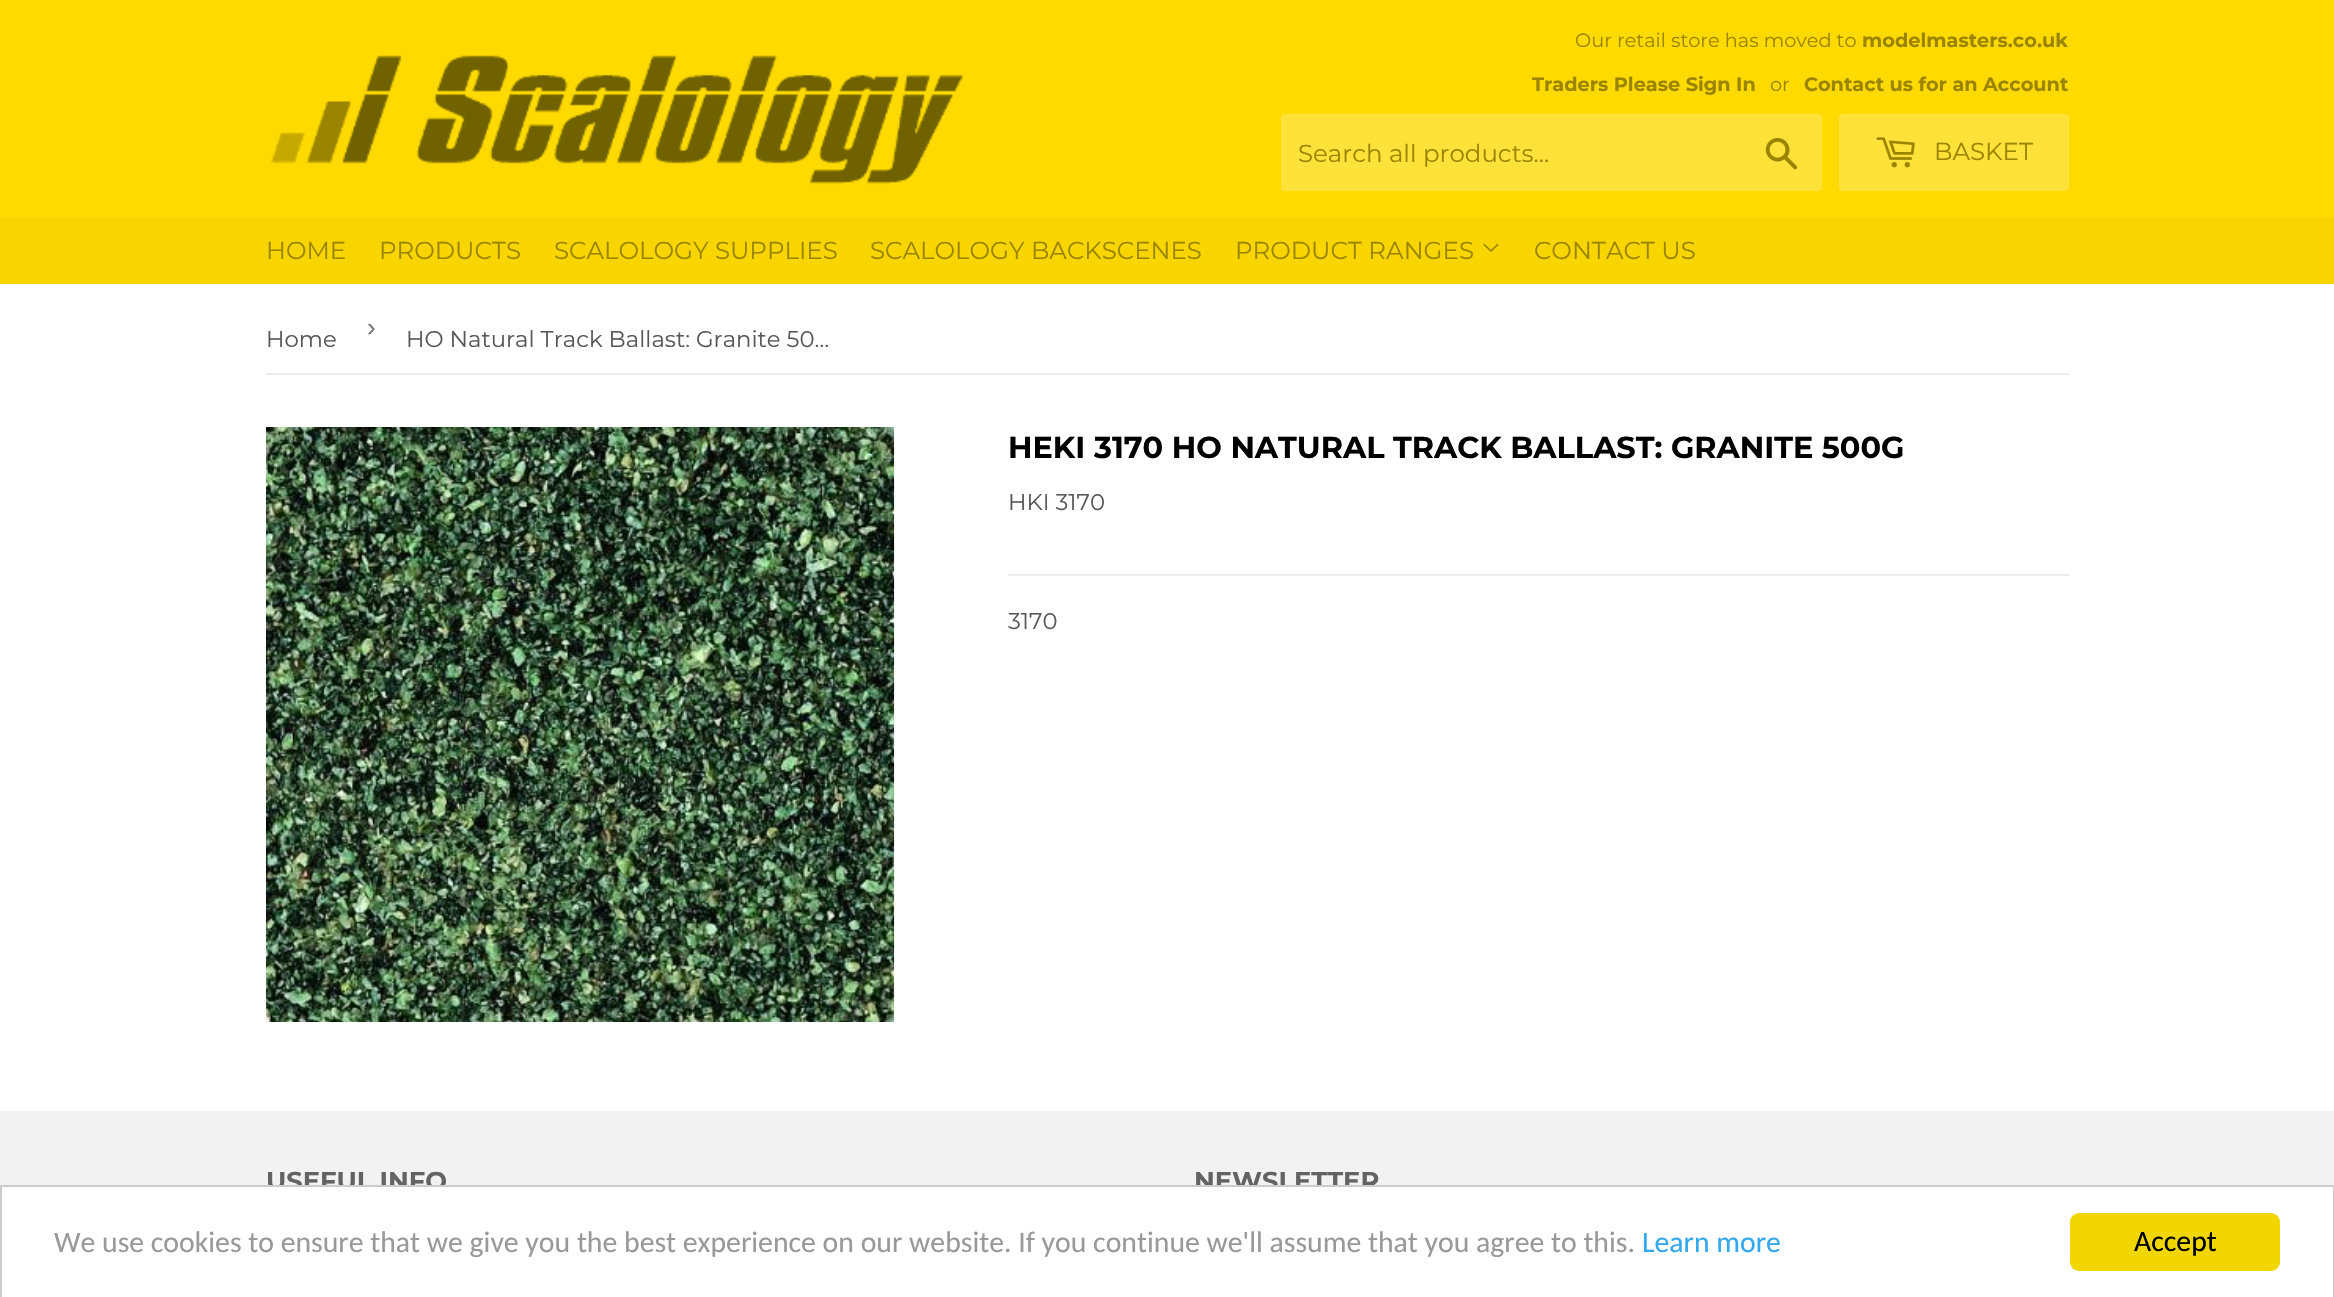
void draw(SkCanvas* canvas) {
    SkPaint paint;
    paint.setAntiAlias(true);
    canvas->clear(0xFFFFFFFF);
    paint.setColor(0xFFFFDA00);
    canvas->drawRect(SkRect::MakeXYWH(0, 0, 2334, 217), paint);
    canvas->drawImageRect(SkImages::DeferredFromEncodedData(SkData::MakeFromFileName("img1.png")), SkRect::MakeXYWH(271, 55, 692, 130), SkSamplingOptions());
    SkFont font1(fontMgr->matchFamilyStyle("Montserrat", SkFontStyle::Normal()), 19.3f);
    font1.setSubpixel(true);
    paint.setColor(0xFF9B8400);
    canvas->drawString("Our retail store has moved to", 1575, 47, font1, paint);
    SkFont font2(fontMgr->matchFamilyStyle("Montserrat", SkFontStyle::Bold()), 19.3f);
    font2.setSubpixel(true);
    canvas->drawString("modelmasters.co.uk", 1862, 47, font2, paint);
    canvas->drawString("Traders Please Sign In", 1532, 91, font2, paint);
    canvas->drawString("or", 1770, 91, font1, paint);
    canvas->drawString("Contact us for an Account", 1804, 91, font2, paint);
    paint.setColor(0xFFFFE239);
    canvas->drawRoundRect(SkRect::MakeXYWH(1281, 114, 541, 77), 4, 4, paint);
    SkFont font3(fontMgr->matchFamilyStyle("Montserrat", SkFontStyle::Normal()), 24.5f);
    font3.setSubpixel(true);
    paint.setColor(0xFF9B8400);
    canvas->drawString("Search all products...", 1298, 162, font3, paint);
    canvas->drawImageRect(SkImages::DeferredFromEncodedData(SkData::MakeFromFileName("img2.png")), SkRect::MakeXYWH(1765, 137, 33, 33), SkSamplingOptions());
    paint.setColor(0xFFFFE239);
    canvas->drawRoundRect(SkRect::MakeXYWH(1839, 114, 230, 77), 4, 4, paint);
    canvas->drawImageRect(SkImages::DeferredFromEncodedData(SkData::MakeFromFileName("img3.png")), SkRect::MakeXYWH(1876, 137, 39, 31), SkSamplingOptions());
    paint.setColor(0xFF9B8400);
    canvas->drawString("BASKET", 1934, 160, font3, paint);
    paint.setColor(0xFFF9D500);
    canvas->drawRect(SkRect::MakeXYWH(0, 217, 2334, 67), paint);
    paint.setColor(0xFF9B8400);
    canvas->drawString("HOME", 266, 259, font3, paint);
    canvas->drawString("PRODUCTS", 379, 259, font3, paint);
    canvas->drawString("SCALOLOGY SUPPLIES", 554, 259, font3, paint);
    canvas->drawString("SCALOLOGY BACKSCENES", 870, 259, font3, paint);
    canvas->drawString("PRODUCT RANGES", 1235, 259, font3, paint);
    canvas->drawImageRect(SkImages::DeferredFromEncodedData(SkData::MakeFromFileName("img4.png")), SkRect::MakeXYWH(1483, 243, 16, 9), SkSamplingOptions());
    canvas->drawString("CONTACT US", 1534, 259, font3, paint);
    paint.setColor(0xFFECECEC);
    canvas->drawRect(SkRect::MakeXYWH(266, 373, 1803, 2), paint);
    SkFont font4(fontMgr->matchFamilyStyle("Montserrat", SkFontStyle::Normal()), 22.75f);
    font4.setSubpixel(true);
    paint.setColor(0xFF585858);
    canvas->drawString("Home", 266, 347, font4, paint);
    SkFont font5(fontMgr->matchFamilyStyle("Liberation Sans", SkFontStyle::Normal()), 26);
    font5.setSubpixel(true);
    paint.setColor(0xFF767676);
    canvas->drawString("›", 367, 336, font5, paint);
    paint.setColor(0xFF585858);
    canvas->drawString("HO Natural Track Ballast: Granite 50…", 406, 347, font4, paint);
    canvas->drawImageRect(SkImages::DeferredFromEncodedData(SkData::MakeFromFileName("img5.png")), SkRect::MakeXYWH(266, 427, 629, 595), SkSamplingOptions());
    SkFont font6(fontMgr->matchFamilyStyle("Montserrat", SkFontStyle::Bold()), 30.3f);
    font6.setSubpixel(true);
    paint.setColor(0xFF000000);
    canvas->drawString("HEKI", 1008, 458, font6, paint);
    canvas->drawString("3170 HO NATURAL TRACK BALLAST: GRANITE 500G", 1094, 458, font6, paint);
    paint.setColor(0xFF585858);
    canvas->drawString("HKI 3170", 1008, 510, font4, paint);
    paint.setColor(0xFFECECEC);
    canvas->drawRect(SkRect::MakeXYWH(1008, 574, 1061, 2), paint);
    paint.setColor(0xFF585858);
    canvas->drawString("3170", 1008, 629, font4, paint);
    paint.setColor(0xFFF2F2F2);
    canvas->drawRect(SkRect::MakeXYWH(0, 1111, 2334, 74), paint);
    SkFont font7(fontMgr->matchFamilyStyle("Montserrat", SkFontStyle::Bold()), 25.75f);
    font7.setSubpixel(true);
    paint.setColor(0xFF636363);
    canvas->drawString("USEFUL INFO", 266, 1190, font7, paint);
    canvas->drawString("NEWSLETTER", 1194, 1190, font7, paint);
    paint.setColor(0xFFFFFFFF);
    canvas->drawRect(SkRect::MakeXYWH(269, 1187, 1110, 4), paint);
    paint.setStyle(SkPaint::kStroke_Style);
    paint.setStrokeWidth(2);
    paint.setColor(0xFFCCCCCC);
    canvas->drawRect(SkRect::MakeXYWH(1, 1186, 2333, 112), paint);
    SkFont font8(fontMgr->matchFamilyStyle("Carlito", SkFontStyle::Normal()), 29.75f);
    font8.setSubpixel(true);
    paint.setStyle(SkPaint::kFill_Style);
    paint.setColor(0xFF999999);
    canvas->drawString("We use cookies to ensure that we give you the best experience on our website. If you continue we'll assume that you agree to this.", 54, 1252, font8, paint);
    paint.setColor(0xFF31A8F0);
    canvas->drawString("Learn more", 1642, 1252, font8, paint);
    paint.setColor(0xFFF1D600);
    canvas->drawRoundRect(SkRect::MakeXYWH(2070, 1213, 210, 58), 9, 9, paint);
    paint.setColor(0xFF000000);
    canvas->drawString("Accept", 2134, 1251, font8, paint);
}
